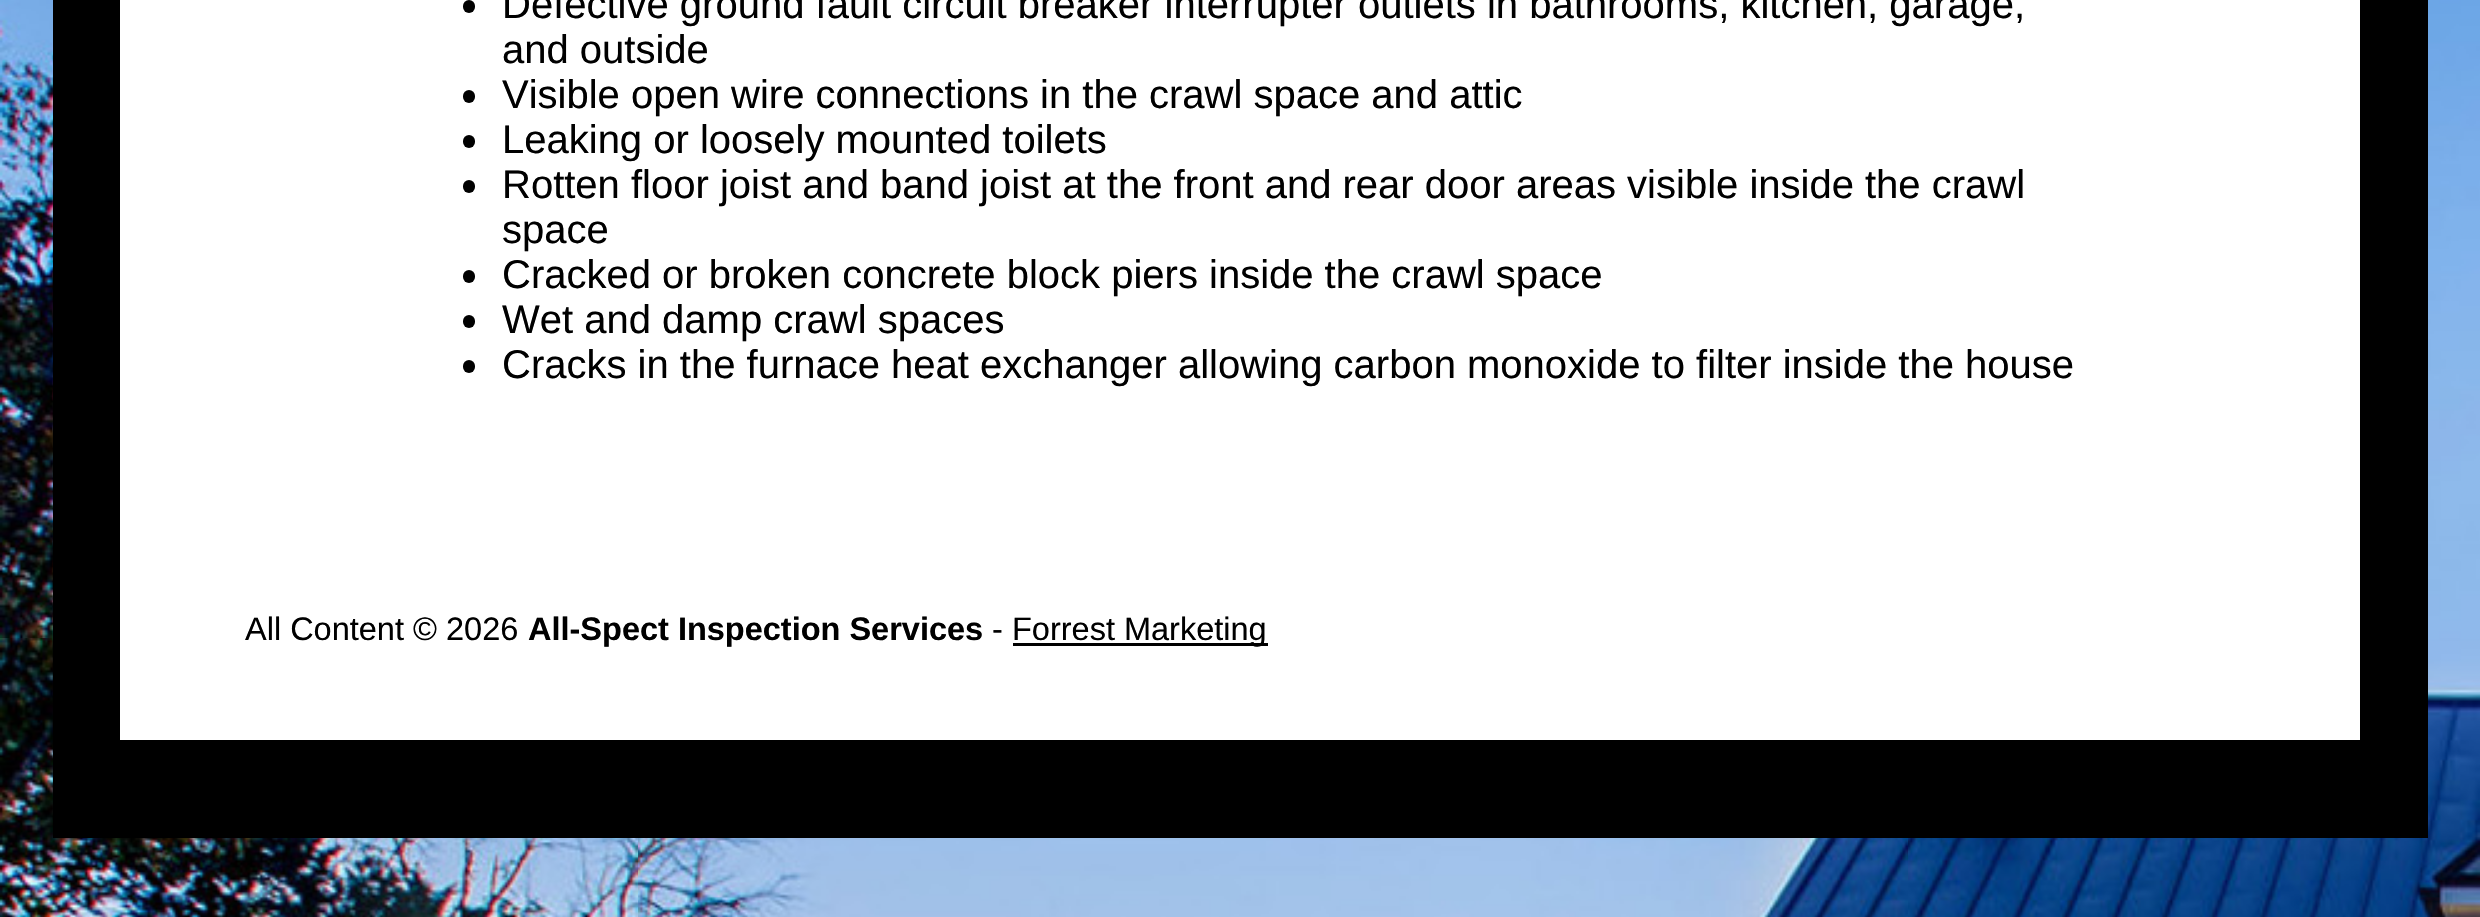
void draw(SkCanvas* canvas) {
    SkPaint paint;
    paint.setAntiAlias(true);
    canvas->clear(0xFFFFFFFF);
    canvas->drawImageRect(SkImages::DeferredFromEncodedData(SkData::MakeFromFileName("img1.png")), SkRect::MakeXYWH(0, 0, 2480, 917), SkSamplingOptions());
    paint.setColor(0xFF000000);
    canvas->drawRect(SkRect::MakeXYWH(53, 0, 2375, 838), paint);
    paint.setColor(0xFFFFFFFF);
    canvas->drawRect(SkRect::MakeXYWH(120, 0, 2240, 740), paint);
    paint.setColor(0xFF000000);
    canvas->drawRoundRect(SkRect::MakeXYWH(463, 0, 12, 13), 6, 6, paint);
    SkFont font1(fontMgr->matchFamilyStyle("Liberation Sans", SkFontStyle::Normal()), 40);
    font1.setSubpixel(true);
    canvas->drawString("Defective ground fault circuit breaker interrupter outlets in bathrooms, kitchen, garage,", 502, 18, font1, paint);
    canvas->drawString("and outside", 502, 63, font1, paint);
    canvas->drawRoundRect(SkRect::MakeXYWH(463, 90, 12, 13), 6, 6, paint);
    canvas->drawString("Visible open wire connections in the crawl space and attic", 502, 108, font1, paint);
    canvas->drawRoundRect(SkRect::MakeXYWH(463, 135, 12, 13), 6, 6, paint);
    canvas->drawString("Leaking or loosely mounted toilets", 502, 153, font1, paint);
    canvas->drawRoundRect(SkRect::MakeXYWH(463, 180, 12, 13), 6, 6, paint);
    canvas->drawString("Rotten floor joist and band joist at the front and rear door areas visible inside the crawl", 502, 198, font1, paint);
    canvas->drawString("space", 502, 243, font1, paint);
    canvas->drawRoundRect(SkRect::MakeXYWH(463, 270, 12, 13), 6, 6, paint);
    canvas->drawString("Cracked or broken concrete block piers inside the crawl space", 502, 288, font1, paint);
    canvas->drawRoundRect(SkRect::MakeXYWH(463, 315, 12, 13), 6, 6, paint);
    canvas->drawString("Wet and damp crawl spaces", 502, 333, font1, paint);
    canvas->drawRoundRect(SkRect::MakeXYWH(463, 360, 12, 13), 6, 6, paint);
    canvas->drawString("Cracks in the furnace heat exchanger allowing carbon monoxide to filter inside the house", 502, 378, font1, paint);
    SkFont font2(fontMgr->matchFamilyStyle("Liberation Sans", SkFontStyle::Normal()), 32.5f);
    font2.setSubpixel(true);
    canvas->drawString("All Content © 2026", 245, 640, font2, paint);
    SkFont font3(fontMgr->matchFamilyStyle("Liberation Sans", SkFontStyle::Bold()), 32.5f);
    font3.setSubpixel(true);
    canvas->drawString("All-Spect Inspection Services", 528, 640, font3, paint);
    canvas->drawString("-", 992, 640, font2, paint);
    canvas->drawRect(SkRect::MakeXYWH(1013, 643, 255, 3), paint);
    canvas->drawString("Forrest Marketing", 1012, 640, font2, paint);
}
